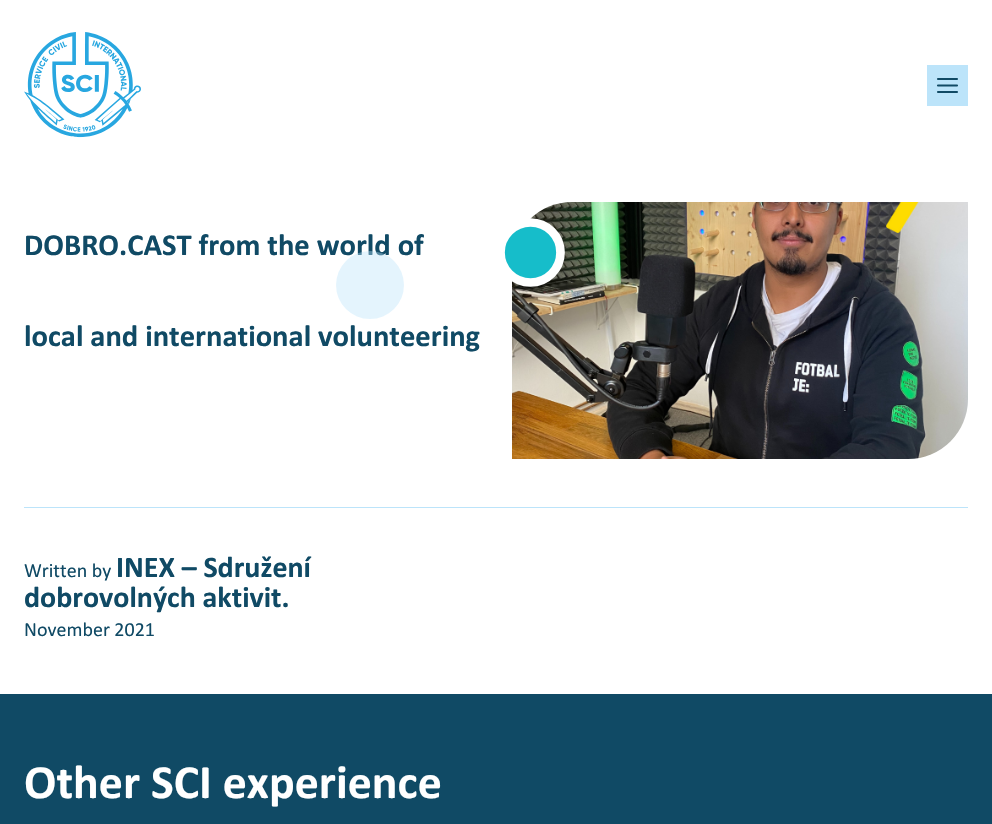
void draw(SkCanvas* canvas) {
    SkPaint paint;
    paint.setAntiAlias(true);
    canvas->clear(0xFFFFFFFF);
    canvas->drawImageRect(SkImages::DeferredFromEncodedData(SkData::MakeFromFileName("img1.png")), SkRect::MakeXYWH(24, 32, 117, 106), SkSamplingOptions());
    paint.setColor(0xFFBCE4FA);
    canvas->drawRect(SkRect::MakeXYWH(927, 65, 41, 41), paint);
    paint.setStyle(SkPaint::kStroke_Style);
    paint.setStrokeWidth(2.1f);
    paint.setStrokeCap(SkPaint::kRound_Cap);
    paint.setStrokeJoin(SkPaint::kRound_Join);
    paint.setColor(0xFF104A65);
    canvas->drawPath(SkPathBuilder().moveTo(938, 85.5f).lineTo(957, 85.5f).moveTo(938, 79).lineTo(957, 79).moveTo(938, 92).lineTo(957, 92).detach(), paint);
    paint.setStyle(SkPaint::kFill_Style);
    paint.setColor(0xFFBCE4FA);
    canvas->drawRect(SkRect::MakeXYWH(24, 507, 944, 1), paint);
    SkFont font1(fontMgr->matchFamilyStyle("Calibri", SkFontStyle::Bold()), 30.6f);
    font1.setSubpixel(true);
    paint.setColor(0xFF104A65);
    canvas->drawString("DOBRO.CAST from the world of", 24, 255, font1, paint);
    canvas->drawString("local and international volunteering", 24, 346, font1, paint);
    canvas->drawImageRect(SkImages::DeferredFromEncodedData(SkData::MakeFromFileName("img2.png")), SkRect::MakeXYWH(512, 202, 456, 257), SkSamplingOptions());
    paint.setColor(0xFF16BDCA);
    canvas->drawCircle(530.5f, 252.5f, 30, paint);
    paint.setStyle(SkPaint::kStroke_Style);
    paint.setStrokeWidth(8.7f);
    paint.setStrokeCap(SkPaint::kButt_Cap);
    paint.setStrokeJoin(SkPaint::kMiter_Join);
    paint.setColor(0xFFFFFFFF);
    canvas->drawCircle(530.5f, 252.5f, 30, paint);
    SkFont font2(fontMgr->matchFamilyStyle("Calibri", SkFontStyle::Normal()), 20);
    font2.setSubpixel(true);
    paint.setStyle(SkPaint::kFill_Style);
    paint.setColor(0xFF104A65);
    canvas->drawString("Written by", 24, 577, font2, paint);
    SkFont font3(fontMgr->matchFamilyStyle("Calibri", SkFontStyle::Bold()), 30);
    font3.setSubpixel(true);
    canvas->drawString("INEX – Sdružení", 116, 577, font3, paint);
    canvas->drawString("dobrovolných aktivit.", 24, 607, font3, paint);
    canvas->drawString("November 2021", 24, 636, font2, paint);
    paint.setColor(0x66BCE4FA);
    canvas->drawCircle(370, 285, 34, paint);
    paint.setColor(0xFF104A65);
    canvas->drawRect(SkRect::MakeXYWH(0, 694, 992, 130), paint);
    SkFont font4(fontMgr->matchFamilyStyle("Calibri", SkFontStyle::Bold()), 48);
    font4.setSubpixel(true);
    paint.setColor(0xFFFFFFFF);
    canvas->drawString("Other SCI experience", 24, 798, font4, paint);
}
